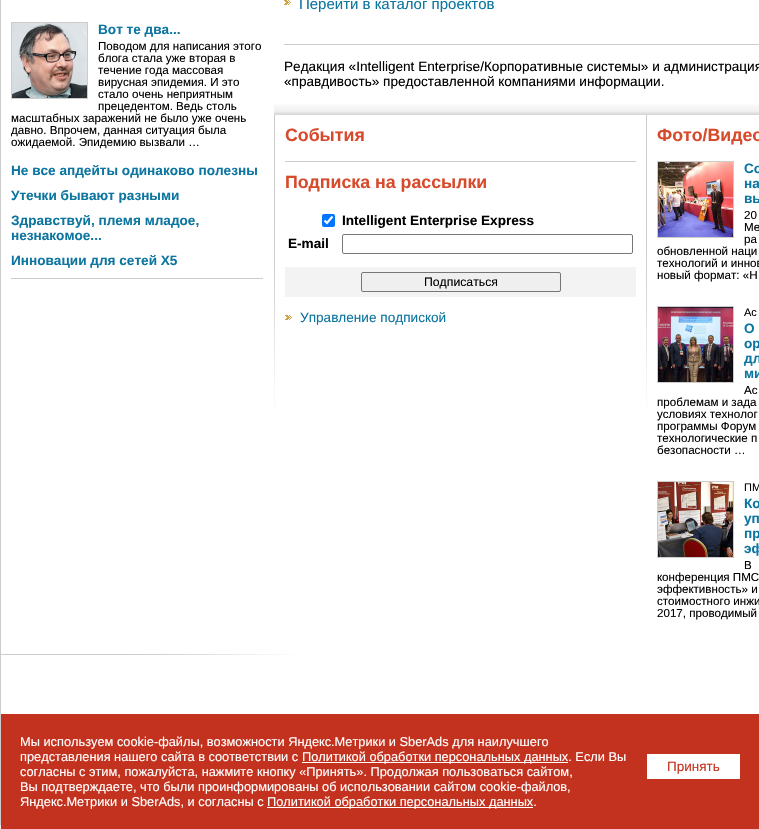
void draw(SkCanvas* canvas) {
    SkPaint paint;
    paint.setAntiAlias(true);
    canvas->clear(0xFFEEEEEE);
    paint.setColor(0xFFFFFFFF);
    canvas->drawRect(SkRect::MakeXYWH(1, 0, 758, 714), paint);
    paint.setStyle(SkPaint::kStroke_Style);
    paint.setStrokeWidth(1);
    paint.setColor(0xFFCCCCCC);
    canvas->drawRect(SkRect::MakeXYWH(0.5f, -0.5f, 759, 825), paint);
    canvas->drawRect(SkRect::MakeXYWH(11.5f, 22.5f, 76, 76), paint);
    canvas->drawImageRect(SkImages::DeferredFromEncodedData(SkData::MakeFromFileName("img1.png")), SkRect::MakeXYWH(12, 23, 75, 75), SkSamplingOptions());
    SkFont font1(fontMgr->matchFamilyStyle("Liberation Sans", SkFontStyle::Bold()), 13.6f);
    font1.setSubpixel(true);
    paint.setStyle(SkPaint::kFill_Style);
    paint.setColor(0xFF0C75A0);
    canvas->drawString("Вот те два...", 98, 34, font1, paint);
    SkFont font2(fontMgr->matchFamilyStyle("Liberation Sans", SkFontStyle::Normal()), 11.6f);
    font2.setSubpixel(true);
    paint.setColor(0xFF000000);
    canvas->drawString("Поводом для написания этого", 98, 50, font2, paint);
    canvas->drawString("блога стала уже вторая в", 98, 62, font2, paint);
    canvas->drawString("течение года массовая", 98, 74, font2, paint);
    canvas->drawString("вирусная эпидемия. И это", 98, 86, font2, paint);
    canvas->drawString("стало очень неприятным", 98, 98, font2, paint);
    canvas->drawString("прецедентом. Ведь столь", 98, 110, font2, paint);
    canvas->drawString("масштабных заражений не было уже очень", 11, 122, font2, paint);
    canvas->drawString("давно. Впрочем, данная ситуация была", 11, 134, font2, paint);
    canvas->drawString("ожидаемой. Эпидемию вызвали …", 11, 146, font2, paint);
    paint.setColor(0xFF0C75A0);
    canvas->drawString("Не все апдейты одинаково полезны", 11, 175, font1, paint);
    canvas->drawString("Утечки бывают разными", 11, 200, font1, paint);
    canvas->drawString("Здравствуй, племя младое,", 11, 225, font1, paint);
    canvas->drawString("незнакомое...", 11, 240, font1, paint);
    canvas->drawString("Инновации для сетей X5", 11, 265, font1, paint);
    paint.setColor(0xFFCCCCCC);
    canvas->drawRect(SkRect::MakeXYWH(11, 278, 252, 1), paint);
    canvas->drawImageRect(SkImages::DeferredFromEncodedData(SkData::MakeFromFileName("img2.png")), SkRect::MakeXYWH(284, 0, 7, 5), SkSamplingOptions());
    SkFont font3(fontMgr->matchFamilyStyle("Liberation Sans", SkFontStyle::Normal()), 15);
    font3.setSubpixel(true);
    paint.setColor(0xFF0C75A0);
    canvas->drawString("Перейти в каталог проектов", 299, 9, font3, paint);
    paint.setColor(0xFFCCCCCC);
    canvas->drawRect(SkRect::MakeXYWH(284, 44, 475, 1), paint);
    SkFont font4(fontMgr->matchFamilyStyle("Liberation Sans", SkFontStyle::Normal()), 13.6f);
    font4.setSubpixel(true);
    paint.setColor(0xFF000000);
    canvas->drawString("Редакция «Intelligent Enterprise/Корпоративные системы» и администрация", 284, 71, font4, paint);
    canvas->drawString("«правдивость» предоставленной компаниями информации.", 284, 86, font4, paint);
    canvas->drawImageRect(SkImages::DeferredFromEncodedData(SkData::MakeFromFileName("img3.png")), SkRect::MakeXYWH(274, 104, 485, 11), SkSamplingOptions());
    canvas->drawImageRect(SkImages::DeferredFromEncodedData(SkData::MakeFromFileName("img4.png")), SkRect::MakeXYWH(274, 115, 1, 292), SkSamplingOptions());
    SkFont font5(fontMgr->matchFamilyStyle("Liberation Sans", SkFontStyle::Bold()), 17.75f);
    font5.setSubpixel(true);
    paint.setColor(0xFFD84A2C);
    canvas->drawString("События", 285, 141, font5, paint);
    paint.setColor(0xFFCCCCCC);
    canvas->drawRect(SkRect::MakeXYWH(285, 161, 351, 1), paint);
    paint.setColor(0xFFD84A2C);
    canvas->drawString("Подписка на рассылки", 285, 188, font5, paint);
    paint.setColor(0xFF0075FF);
    canvas->drawRoundRect(SkRect::MakeXYWH(322, 214, 13, 13), 2, 2, paint);
    paint.setStyle(SkPaint::kStroke_Style);
    paint.setStrokeWidth(2.1f);
    paint.setColor(0xFFFFFFFF);
    canvas->drawPath(SkPathBuilder().moveTo(324.5f, 220.5f).lineTo(327, 223).lineTo(332.5f, 216.5f).detach(), paint);
    paint.setStyle(SkPaint::kFill_Style);
    paint.setColor(0xFF000000);
    canvas->drawString("Intelligent Enterprise Express", 342, 225, font1, paint);
    canvas->drawString("E-mail", 288, 248, font1, paint);
    paint.setStyle(SkPaint::kStroke_Style);
    paint.setStrokeWidth(1);
    paint.setColor(0xFF767676);
    canvas->drawRoundRect(SkRect::MakeXYWH(342.5f, 234.5f, 290, 19), 1.5f, 1.5f, paint);
    paint.setStyle(SkPaint::kFill_Style);
    paint.setColor(0xFFF3F3F3);
    canvas->drawRect(SkRect::MakeXYWH(285, 267, 351, 30), paint);
    paint.setColor(0xFFEFEFEF);
    canvas->drawRoundRect(SkRect::MakeXYWH(361.5f, 272.5f, 199, 19), 1.5f, 1.5f, paint);
    paint.setStyle(SkPaint::kStroke_Style);
    paint.setColor(0xFF767676);
    canvas->drawRoundRect(SkRect::MakeXYWH(361.5f, 272.5f, 199, 19), 1.5f, 1.5f, paint);
    SkFont font6(fontMgr->matchFamilyStyle("Liberation Sans", SkFontStyle::Normal()), 12.25f);
    font6.setSubpixel(true);
    paint.setStyle(SkPaint::kFill_Style);
    paint.setColor(0xFF000000);
    canvas->drawString("Подписаться", 424, 286, font6, paint);
    canvas->drawImageRect(SkImages::DeferredFromEncodedData(SkData::MakeFromFileName("img2.png")), SkRect::MakeXYWH(285, 315, 7, 5), SkSamplingOptions());
    paint.setColor(0xFF0C75A0);
    canvas->drawString("Управление подпиской", 300, 322, font4, paint);
    canvas->drawImageRect(SkImages::DeferredFromEncodedData(SkData::MakeFromFileName("img4.png")), SkRect::MakeXYWH(646, 115, 1, 292), SkSamplingOptions());
    paint.setColor(0xFFD84A2C);
    canvas->drawString("Фото/Видео", 657, 141, font5, paint);
    paint.setStyle(SkPaint::kStroke_Style);
    paint.setColor(0xFFCCCCCC);
    canvas->drawRect(SkRect::MakeXYWH(657.5f, 161.5f, 76, 76), paint);
    canvas->drawImageRect(SkImages::DeferredFromEncodedData(SkData::MakeFromFileName("img5.png")), SkRect::MakeXYWH(658, 162, 75, 75), SkSamplingOptions());
    paint.setStyle(SkPaint::kFill_Style);
    paint.setColor(0xFF0C75A0);
    canvas->drawString("Со", 744, 173, font1, paint);
    canvas->drawString("на", 744, 188, font1, paint);
    canvas->drawString("вы", 744, 203, font1, paint);
    paint.setColor(0xFF000000);
    canvas->drawString("20", 744, 219, font2, paint);
    canvas->drawString("Ме", 744, 231, font2, paint);
    canvas->drawString("ра", 744, 243, font2, paint);
    canvas->drawString("обновленной наци", 657, 255, font2, paint);
    canvas->drawString("технологий и иннов", 657, 267, font2, paint);
    canvas->drawString("новый формат: «Н", 657, 279, font2, paint);
    paint.setStyle(SkPaint::kStroke_Style);
    paint.setColor(0xFFCCCCCC);
    canvas->drawRect(SkRect::MakeXYWH(657.5f, 306.5f, 76, 76), paint);
    canvas->drawImageRect(SkImages::DeferredFromEncodedData(SkData::MakeFromFileName("img6.png")), SkRect::MakeXYWH(658, 307, 75, 75), SkSamplingOptions());
    SkFont font7(fontMgr->matchFamilyStyle("Liberation Sans", SkFontStyle::Normal()), 11);
    font7.setSubpixel(true);
    paint.setStyle(SkPaint::kFill_Style);
    paint.setColor(0xFF000000);
    canvas->drawString("Ас", 744, 316, font7, paint);
    paint.setColor(0xFF0C75A0);
    canvas->drawString("О", 744, 333, font1, paint);
    canvas->drawString("ор", 744, 348, font1, paint);
    canvas->drawString("дл", 744, 363, font1, paint);
    canvas->drawString("ми", 744, 378, font1, paint);
    paint.setColor(0xFF000000);
    canvas->drawString("Ас", 744, 394, font2, paint);
    canvas->drawString("проблемам и зада", 657, 406, font2, paint);
    canvas->drawString("условиях технолог", 657, 418, font2, paint);
    canvas->drawString("программы Форум", 657, 430, font2, paint);
    canvas->drawString("технологические п", 657, 442, font2, paint);
    canvas->drawString("безопасности …", 657, 454, font2, paint);
    paint.setStyle(SkPaint::kStroke_Style);
    paint.setColor(0xFFCCCCCC);
    canvas->drawRect(SkRect::MakeXYWH(657.5f, 481.5f, 76, 76), paint);
    canvas->drawImageRect(SkImages::DeferredFromEncodedData(SkData::MakeFromFileName("img7.png")), SkRect::MakeXYWH(658, 482, 75, 75), SkSamplingOptions());
    paint.setStyle(SkPaint::kFill_Style);
    paint.setColor(0xFF000000);
    canvas->drawString("ПМ", 744, 491, font7, paint);
    paint.setColor(0xFF0C75A0);
    canvas->drawString("Ко", 744, 508, font1, paint);
    canvas->drawString("уп", 744, 523, font1, paint);
    canvas->drawString("пр", 744, 538, font1, paint);
    canvas->drawString("эф", 744, 553, font1, paint);
    paint.setColor(0xFF000000);
    canvas->drawString("В", 744, 569, font2, paint);
    canvas->drawString("конференция ПМС", 657, 581, font2, paint);
    canvas->drawString("эффективность» и", 657, 593, font2, paint);
    canvas->drawString("стоимостного инжи", 657, 605, font2, paint);
    canvas->drawString("2017, проводимый", 657, 617, font2, paint);
    canvas->drawImageRect(SkImages::DeferredFromEncodedData(SkData::MakeFromFileName("img8.png")), SkRect::MakeXYWH(1, 654, 292, 1), SkSamplingOptions());
    paint.setColor(0xFFC3321E);
    canvas->drawRect(SkRect::MakeXYWH(1, 714, 758, 115), paint);
    SkFont font8(fontMgr->matchFamilyStyle("Liberation Sans", SkFontStyle::Normal()), 12.8f);
    font8.setSubpixel(true);
    paint.setColor(0xFFFFFFFF);
    canvas->drawString("Мы используем cookie-файлы, возможности Яндекс.Метрики и SberAds для наилучшего", 20, 746, font8, paint);
    canvas->drawString("представления нашего сайта в соответствии с", 20, 761, font8, paint);
    canvas->drawRect(SkRect::MakeXYWH(302, 762, 266, 1), paint);
    canvas->drawString("Политикой обработки персональных данных. Если Вы", 302, 761, font8, paint);
    canvas->drawString("согласны с этим, пожалуйста, нажмите кнопку «Принять». Продолжая пользоваться сайтом,", 20, 776, font8, paint);
    canvas->drawRect(SkRect::MakeXYWH(647, 754, 93, 25), paint);
    SkFont font9(fontMgr->matchFamilyStyle("Liberation Sans", SkFontStyle::Normal()), 13.5f);
    font9.setSubpixel(true);
    paint.setColor(0xFFC3321E);
    canvas->drawString("Принять", 667, 771, font9, paint);
    paint.setColor(0xFFFFFFFF);
    canvas->drawString("Вы подтверждаете, что были проинформированы об использовании сайтом cookie-файлов,", 20, 791, font8, paint);
    canvas->drawString("Яндекс.Метрики и SberAds, и согласны с", 20, 806, font8, paint);
    canvas->drawRect(SkRect::MakeXYWH(267, 807, 266, 1), paint);
    canvas->drawString("Политикой обработки персональных данных.", 267, 806, font8, paint);
}
